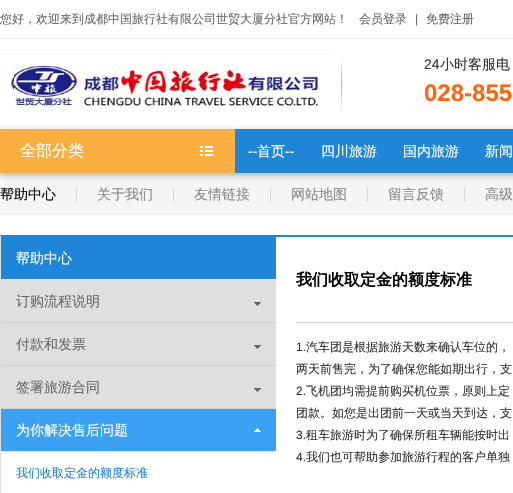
void draw(SkCanvas* canvas) {
    SkPaint paint;
    paint.setAntiAlias(true);
    canvas->clear(0xFFFFFFFF);
    paint.setColor(0xFFF1F1F0);
    canvas->drawRect(SkRect::MakeXYWH(0, 38, 513, 1), paint);
    SkFont font1(fontMgr->matchFamilyStyle("WenQuanYi Zen Hei", SkFontStyle(500, SkFontStyle::kNormal_Width, SkFontStyle::kUpright_Slant)), 12);
    font1.setSubpixel(true);
    paint.setColor(0xFF666666);
    canvas->drawString("您好，欢迎来到成都中国旅行社有限公司世贸大厦分社官方网站！", 0, 23, font1, paint);
    canvas->drawString("会员登录", 359, 23, font1, paint);
    SkFont font2(fontMgr->matchFamilyStyle("Liberation Sans", SkFontStyle::Normal()), 12);
    font2.setSubpixel(true);
    canvas->drawString("|", 415, 23, font2, paint);
    canvas->drawString("免费注册", 426, 23, font1, paint);
    canvas->drawImageRect(SkImages::DeferredFromEncodedData(SkData::MakeFromFileName("img1.png")), SkRect::MakeXYWH(341, 58, 1, 54), SkSamplingOptions());
    canvas->drawImageRect(SkImages::DeferredFromEncodedData(SkData::MakeFromFileName("img2.png")), SkRect::MakeXYWH(0, 54, 330, 54), SkSamplingOptions());
    SkFont font3(fontMgr->matchFamilyStyle("Liberation Sans", SkFontStyle::Normal()), 14);
    font3.setSubpixel(true);
    paint.setColor(0xFF333333);
    canvas->drawString("24", 424, 69, font3, paint);
    SkFont font4(fontMgr->matchFamilyStyle("WenQuanYi Zen Hei", SkFontStyle(500, SkFontStyle::kNormal_Width, SkFontStyle::kUpright_Slant)), 14);
    font4.setSubpixel(true);
    canvas->drawString("小时客服电", 440, 69, font4, paint);
    SkFont font5(fontMgr->matchFamilyStyle("Liberation Sans", SkFontStyle::Bold()), 24);
    font5.setSubpixel(true);
    paint.setColor(0xFFFF6612);
    canvas->drawString("028-855", 424, 101, font5, paint);
    paint.setColor(0xFFF5F5F5);
    canvas->drawRect(SkRect::MakeXYWH(0, 174, 513, 40), paint);
    paint.setColor(0x4D000000);
    paint.setMaskFilter(SkMaskFilter::MakeBlur(kNormal_SkBlurStyle, 3));
    canvas->drawRect(SkRect::MakeXYWH(-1, 131, 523, 44), paint);
    paint.setMaskFilter(nullptr);
    paint.setColor(0xFF1F85D7);
    canvas->drawRect(SkRect::MakeXYWH(235, 129, 278, 44), paint);
    paint.setColor(0xFFFAAF40);
    canvas->drawRect(SkRect::MakeXYWH(0, 129, 235, 44), paint);
    canvas->drawImageRect(SkImages::DeferredFromEncodedData(SkData::MakeFromFileName("img3.png")), SkRect::MakeXYWH(200, 146, 13, 10), SkSamplingOptions());
    SkFont font6(fontMgr->matchFamilyStyle("WenQuanYi Zen Hei", SkFontStyle(500, SkFontStyle::kNormal_Width, SkFontStyle::kUpright_Slant)), 16);
    font6.setSubpixel(true);
    paint.setColor(0xFFFFFFFF);
    canvas->drawString("全部分类", 20, 156, font6, paint);
    canvas->drawString("--", 248, 156, font3, paint);
    canvas->drawString("首页", 257, 156, font4, paint);
    canvas->drawString("--", 285, 156, font3, paint);
    canvas->drawString("四川旅游", 321, 156, font4, paint);
    canvas->drawString("国内旅游", 403, 156, font4, paint);
    canvas->drawString("新闻", 485, 156, font4, paint);
    paint.setColor(0xFFEFEFEF);
    canvas->drawRect(SkRect::MakeXYWH(0, 214, 513, 1), paint);
    paint.setColor(0xFFD5D5D5);
    canvas->drawRect(SkRect::MakeXYWH(76, 188, 1, 14), paint);
    paint.setColor(0xFF000000);
    canvas->drawString("帮助中心", 0, 199, font4, paint);
    paint.setColor(0xFFD5D5D5);
    canvas->drawRect(SkRect::MakeXYWH(173, 188, 1, 14), paint);
    paint.setColor(0xFF888888);
    canvas->drawString("关于我们", 97, 199, font4, paint);
    paint.setColor(0xFFD5D5D5);
    canvas->drawRect(SkRect::MakeXYWH(270, 188, 1, 14), paint);
    paint.setColor(0xFF888888);
    canvas->drawString("友情链接", 194, 199, font4, paint);
    paint.setColor(0xFFD5D5D5);
    canvas->drawRect(SkRect::MakeXYWH(367, 188, 1, 14), paint);
    paint.setColor(0xFF888888);
    canvas->drawString("网站地图", 291, 199, font4, paint);
    paint.setColor(0xFFD5D5D5);
    canvas->drawRect(SkRect::MakeXYWH(464, 188, 1, 14), paint);
    paint.setColor(0xFF888888);
    canvas->drawString("留言反馈", 388, 199, font4, paint);
    canvas->drawString("高级", 485, 199, font4, paint);
    paint.setColor(0xFF1F85D7);
    canvas->drawPath(SkPathBuilder().moveTo(0, 235).lineTo(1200, 235).lineTo(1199, 237).lineTo(1, 237).close().detach(), paint);
    paint.setColor(0xFFDFDFDF);
    canvas->drawPath(SkPathBuilder().moveTo(0, 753).lineTo(0, 235).lineTo(1, 237).lineTo(1, 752).close().detach(), paint);
    paint.setColor(0xFF1F85D7);
    canvas->drawRect(SkRect::MakeXYWH(1, 237, 275, 42), paint);
    paint.setColor(0xFFE5E5E5);
    canvas->drawRect(SkRect::MakeXYWH(1, 279, 275, 1), paint);
    paint.setColor(0xFFFFFFFF);
    canvas->drawString("帮助中心", 16, 263, font4, paint);
    paint.setColor(0xFFDFDFDF);
    canvas->drawRect(SkRect::MakeXYWH(1, 280, 275, 42), paint);
    paint.setColor(0xFFD0D0D0);
    canvas->drawRect(SkRect::MakeXYWH(1, 322, 275, 1), paint);
    canvas->drawImageRect(SkImages::DeferredFromEncodedData(SkData::MakeFromFileName("img4.png")), SkRect::MakeXYWH(254, 302, 7, 4), SkSamplingOptions());
    paint.setColor(0xFF666666);
    canvas->drawString("订购流程说明", 16, 306, font4, paint);
    paint.setColor(0xFFDFDFDF);
    canvas->drawRect(SkRect::MakeXYWH(1, 323, 275, 42), paint);
    paint.setColor(0xFFD0D0D0);
    canvas->drawRect(SkRect::MakeXYWH(1, 365, 275, 1), paint);
    canvas->drawImageRect(SkImages::DeferredFromEncodedData(SkData::MakeFromFileName("img4.png")), SkRect::MakeXYWH(254, 345, 7, 4), SkSamplingOptions());
    paint.setColor(0xFF666666);
    canvas->drawString("付款和发票", 16, 349, font4, paint);
    paint.setColor(0xFFDFDFDF);
    canvas->drawRect(SkRect::MakeXYWH(1, 366, 275, 42), paint);
    paint.setColor(0xFFD0D0D0);
    canvas->drawRect(SkRect::MakeXYWH(1, 408, 275, 1), paint);
    canvas->drawImageRect(SkImages::DeferredFromEncodedData(SkData::MakeFromFileName("img4.png")), SkRect::MakeXYWH(254, 388, 7, 4), SkSamplingOptions());
    paint.setColor(0xFF666666);
    canvas->drawString("签署旅游合同", 16, 392, font4, paint);
    paint.setColor(0xFF3BA1F3);
    canvas->drawRect(SkRect::MakeXYWH(1, 409, 275, 42), paint);
    paint.setColor(0xFFEAEAEA);
    canvas->drawRect(SkRect::MakeXYWH(1, 451, 275, 1), paint);
    canvas->drawImageRect(SkImages::DeferredFromEncodedData(SkData::MakeFromFileName("img5.png")), SkRect::MakeXYWH(254, 428, 7, 4), SkSamplingOptions());
    paint.setColor(0xFFFFFFFF);
    canvas->drawString("为你解决售后问题", 16, 435, font4, paint);
    paint.setColor(0xFF1F85D7);
    canvas->drawString("我们收取定金的额度标准", 16, 477, font1, paint);
    paint.setColor(0xFFD0D0D0);
    canvas->drawRect(SkRect::MakeXYWH(296, 322, 217, 1), paint);
    SkFont font7(fontMgr->matchFamilyStyle("WenQuanYi Zen Hei", SkFontStyle::Bold()), 16);
    font7.setSubpixel(true);
    paint.setColor(0xFF000000);
    canvas->drawString("我们收取定金的额度标准", 296, 285, font7, paint);
    paint.setColor(0xFF333333);
    canvas->drawString("1.", 296, 351, font2, paint);
    canvas->drawString("汽车团是根据旅游天数来确认车位的，", 306, 351, font1, paint);
    canvas->drawString("两天前售完，为了确保您能如期出行，支", 296, 373, font1, paint);
    canvas->drawString("2.", 296, 395, font2, paint);
    canvas->drawString("飞机团均需提前购买机位票，原则上定", 306, 395, font1, paint);
    canvas->drawString("团款。如您是出团前一天或当天到达，支", 296, 417, font1, paint);
    canvas->drawString("3.", 296, 439, font2, paint);
    canvas->drawString("租车旅游时为了确保所租车辆能按时出", 306, 439, font1, paint);
    canvas->drawString("4.", 296, 461, font2, paint);
    canvas->drawString("我们也可帮助参加旅游行程的客户单独", 306, 461, font1, paint);
}
